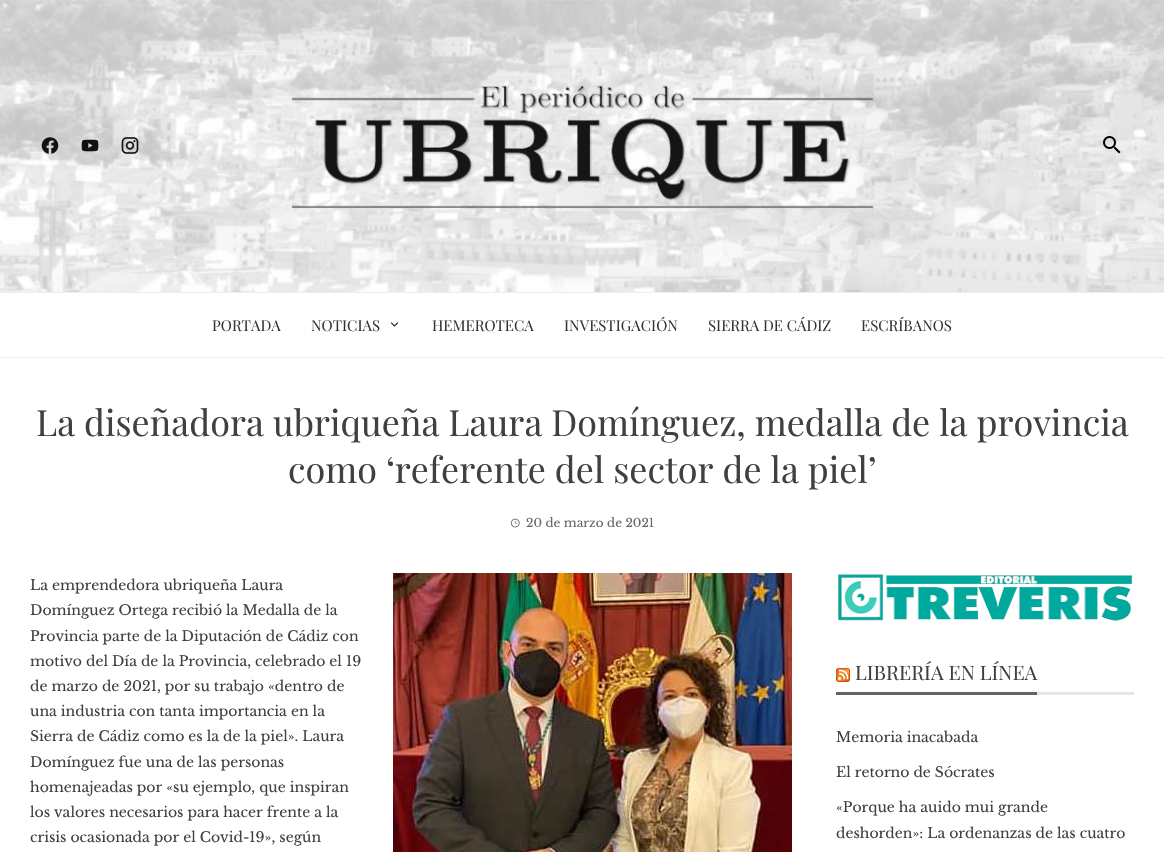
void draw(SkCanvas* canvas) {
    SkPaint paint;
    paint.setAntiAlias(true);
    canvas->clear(0xFFFFFFFF);
    canvas->drawImageRect(SkImages::DeferredFromEncodedData(SkData::MakeFromFileName("img1.png")), SkRect::MakeXYWH(0, 0, 1164, 292), SkSamplingOptions());
    canvas->drawImageRect(SkImages::DeferredFromEncodedData(SkData::MakeFromFileName("img2.png")), SkRect::MakeXYWH(41, 137, 18, 17), SkSamplingOptions());
    canvas->drawImageRect(SkImages::DeferredFromEncodedData(SkData::MakeFromFileName("img3.png")), SkRect::MakeXYWH(81, 139, 18, 13), SkSamplingOptions());
    canvas->drawImageRect(SkImages::DeferredFromEncodedData(SkData::MakeFromFileName("img4.png")), SkRect::MakeXYWH(121, 137, 18, 17), SkSamplingOptions());
    canvas->drawImageRect(SkImages::DeferredFromEncodedData(SkData::MakeFromFileName("img5.png")), SkRect::MakeXYWH(291, 85, 583, 124), SkSamplingOptions());
    canvas->drawImageRect(SkImages::DeferredFromEncodedData(SkData::MakeFromFileName("img6.png")), SkRect::MakeXYWH(1103, 136, 18, 18), SkSamplingOptions());
    paint.setColor(0xFFEEEEEE);
    canvas->drawRect(SkRect::MakeXYWH(0, 292, 1164, 1), paint);
    canvas->drawRect(SkRect::MakeXYWH(0, 357, 1164, 1), paint);
    SkFont font1(fontMgr->matchFamilyStyle("Playfair Display", SkFontStyle::Normal()), 15);
    font1.setSubpixel(true);
    paint.setColor(0xFF333333);
    canvas->drawString("PORTADA", 212, 331, font1, paint);
    canvas->drawString("NOTICIAS", 311, 331, font1, paint);
    canvas->drawImageRect(SkImages::DeferredFromEncodedData(SkData::MakeFromFileName("img7.png")), SkRect::MakeXYWH(390, 322, 9, 5), SkSamplingOptions());
    canvas->drawString("HEMEROTECA", 432, 331, font1, paint);
    canvas->drawString("INVESTIGACIÓN", 564, 331, font1, paint);
    canvas->drawString("SIERRA DE CÁDIZ", 708, 331, font1, paint);
    canvas->drawString("ESCRÍBANOS", 861, 331, font1, paint);
    SkFont font2(fontMgr->matchFamilyStyle("Playfair Display", SkFontStyle::Normal()), 36);
    font2.setSubpixel(true);
    paint.setColor(0xFF404040);
    canvas->drawString("La diseñadora ubriqueña Laura Domínguez, medalla de la provincia", 36, 436, font2, paint);
    canvas->drawString("como ‘referente del sector de la piel’", 288, 483, font2, paint);
    canvas->drawImageRect(SkImages::DeferredFromEncodedData(SkData::MakeFromFileName("img8.png")), SkRect::MakeXYWH(510, 518, 10, 10), SkSamplingOptions());
    SkFont font3(fontMgr->matchFamilyStyle("Libre Baskerville", SkFontStyle::Normal()), 12);
    font3.setSubpixel(true);
    paint.setColor(0xFF666666);
    canvas->drawString("20 de marzo de 2021", 526, 527, font3, paint);
    SkFont font4(fontMgr->matchFamilyStyle("Libre Baskerville", SkFontStyle::Normal()), 14);
    font4.setSubpixel(true);
    paint.setColor(0xFF404040);
    canvas->drawString("La emprendedora ubriqueña Laura", 30, 590, font4, paint);
    canvas->drawString("Domínguez Ortega recibió la Medalla de la", 30, 615, font4, paint);
    canvas->drawString("Provincia parte de la Diputación de Cádiz con", 30, 641, font4, paint);
    canvas->drawString("motivo del Día de la Provincia, celebrado el 19", 30, 666, font4, paint);
    canvas->drawString("de marzo de 2021, por su trabajo «dentro de", 30, 691, font4, paint);
    canvas->drawString("una industria con tanta importancia en la", 30, 716, font4, paint);
    canvas->drawString("Sierra de Cádiz como es la de la piel». Laura", 30, 741, font4, paint);
    canvas->drawString("Domínguez fue una de las personas", 30, 767, font4, paint);
    canvas->drawString("homenajeadas por «su ejemplo, que inspiran", 30, 792, font4, paint);
    canvas->drawString("los valores necesarios para hacer frente a la", 30, 817, font4, paint);
    canvas->drawString("crisis ocasionada por el Covid-19», según", 30, 842, font4, paint);
    canvas->drawImageRect(SkImages::DeferredFromEncodedData(SkData::MakeFromFileName("img9.png")), SkRect::MakeXYWH(393, 573, 399, 279), SkSamplingOptions());
    canvas->drawImageRect(SkImages::DeferredFromEncodedData(SkData::MakeFromFileName("img10.png")), SkRect::MakeXYWH(838, 574, 295, 47), SkSamplingOptions());
    paint.setColor(0xFFE6E6E6);
    canvas->drawRect(SkRect::MakeXYWH(1037, 692, 97, 3), paint);
    canvas->drawImageRect(SkImages::DeferredFromEncodedData(SkData::MakeFromFileName("img11.png")), SkRect::MakeXYWH(836, 668, 14, 14), SkSamplingOptions());
    SkFont font5(fontMgr->matchFamilyStyle("Playfair Display", SkFontStyle::Normal()), 20);
    font5.setSubpixel(true);
    paint.setColor(0xFF404040);
    canvas->drawString("LIBRERÍA EN LÍNEA", 855, 680, font5, paint);
    paint.setColor(0xFF636363);
    canvas->drawRect(SkRect::MakeXYWH(836, 692, 201, 3), paint);
    paint.setColor(0xFF404040);
    canvas->drawString("Memoria inacabada", 836, 742, font4, paint);
    canvas->drawString("El retorno de Sócrates", 836, 777, font4, paint);
    canvas->drawString("«Porque ha auido mui grande", 836, 812, font4, paint);
    canvas->drawString("deshorden»: La ordenanzas de las cuatro", 836, 838, font4, paint);
}
